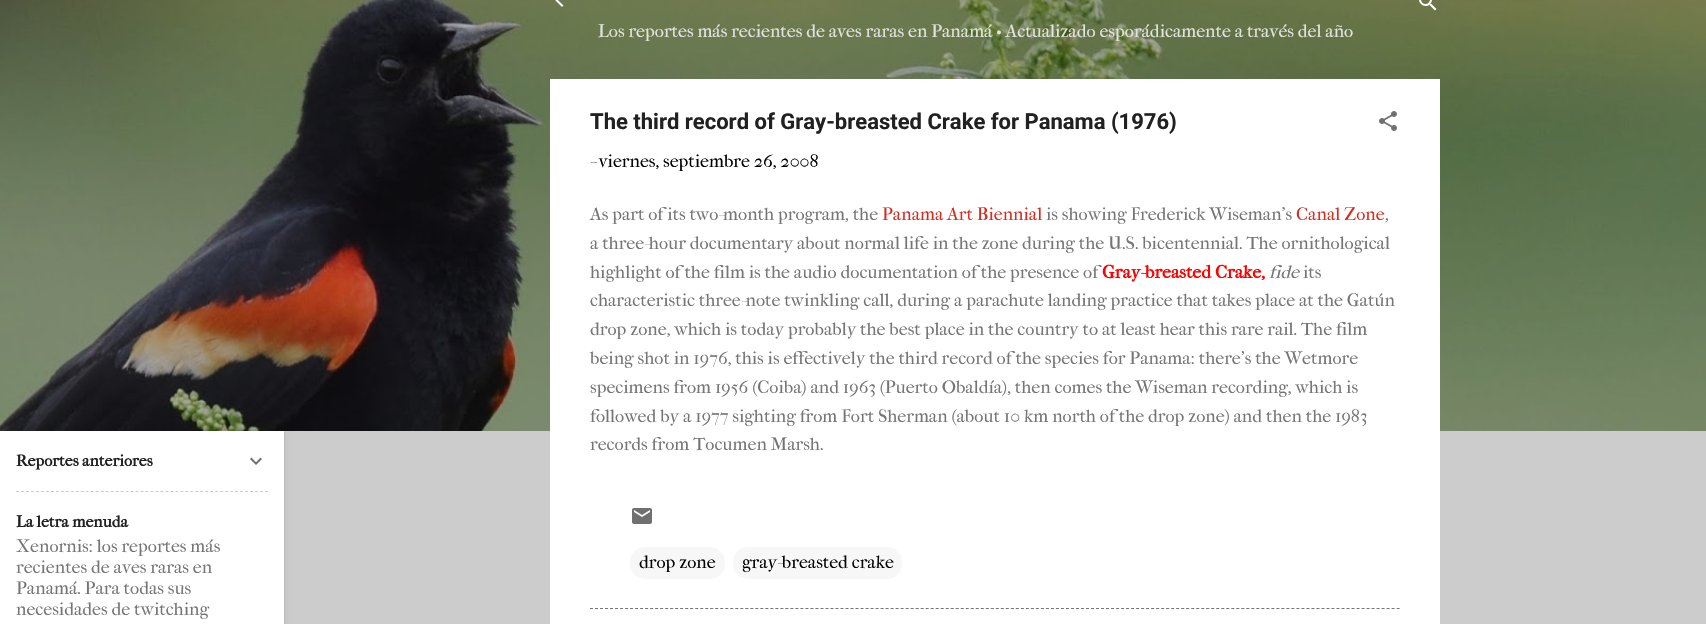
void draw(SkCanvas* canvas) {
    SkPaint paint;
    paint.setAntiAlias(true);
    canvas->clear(0xFFCCCCCC);
    canvas->drawImageRect(SkImages::DeferredFromEncodedData(SkData::MakeFromFileName("img2.png")), SkRect::MakeXYWH(0, 0, 1706, 431), SkSamplingOptions());
    paint.setColor(0x1A000000);
    paint.setMaskFilter(SkMaskFilter::MakeBlur(kNormal_SkBlurStyle, 1.5f));
    canvas->drawRect(SkRect::MakeXYWH(1, 432, 284, 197), paint);
    paint.setMaskFilter(nullptr);
    paint.setColor(0xFFFFFFFF);
    canvas->drawRect(SkRect::MakeXYWH(0, 431, 284, 193), paint);
    SkFont font1(fontMgr->matchFamilyStyle("IM FELL French Canon", SkFontStyle::Bold()), 16);
    font1.setSubpixel(true);
    paint.setColor(0xFF212121);
    canvas->drawString("Reportes anteriores", 16, 466, font1, paint);
    canvas->drawImageRect(SkImages::DeferredFromEncodedData(SkData::MakeFromFileName("img1.png")), SkRect::MakeXYWH(250, 457, 12, 8), SkSamplingOptions());
    paint.setStyle(SkPaint::kStroke_Style);
    paint.setStrokeWidth(1);
    paint.setColor(0xFFCCCCCC);
    paint.setPathEffect(SkDashPathEffect::Make({{3, 1.98f}}, 0));
    canvas->drawPath(SkPathBuilder().moveTo(16, 491.5f).lineTo(268, 491.5f).detach(), paint);
    paint.setPathEffect(nullptr);
    paint.setStyle(SkPaint::kFill_Style);
    paint.setColor(0xFF212121);
    canvas->drawString("La letra menuda", 16, 527, font1, paint);
    SkFont font2(fontMgr->matchFamilyStyle("IM FELL French Canon", SkFontStyle::Normal()), 18);
    font2.setSubpixel(true);
    paint.setColor(0xFF757575);
    canvas->drawString("Xenornis: los reportes más", 16, 552, font2, paint);
    canvas->drawString("recientes de aves raras en", 16, 573, font2, paint);
    canvas->drawString("Panamá. Para todas sus", 16, 594, font2, paint);
    canvas->drawString("necesidades de twitching", 16, 615, font2, paint);
    canvas->drawImageRect(SkImages::DeferredFromEncodedData(SkData::MakeFromFileName("img3.png")), SkRect::MakeXYWH(555, 0, 9, 7), SkSamplingOptions());
    canvas->drawImageRect(SkImages::DeferredFromEncodedData(SkData::MakeFromFileName("img4.png")), SkRect::MakeXYWH(1419, 0, 18, 11), SkSamplingOptions());
    paint.setColor(0xFFE1E4DB);
    canvas->drawString("Los reportes más recientes de aves raras en Panamá • Actualizado esporádicamente a través del año", 598, 37, font2, paint);
    paint.setColor(0xFFFFFFFF);
    canvas->drawRect(SkRect::MakeXYWH(550, 79, 890, 545), paint);
    SkFont font3(fontMgr->matchFamilyStyle("Roboto", SkFontStyle::Bold()), 22);
    font3.setSubpixel(true);
    paint.setColor(0xFF212121);
    canvas->drawString("The third record of Gray-breasted Crake for Panama (1976)", 590, 129, font3, paint);
    canvas->drawImageRect(SkImages::DeferredFromEncodedData(SkData::MakeFromFileName("img5.png")), SkRect::MakeXYWH(1379, 111, 18, 20), SkSamplingOptions());
    paint.setColor(0xFF000000);
    canvas->drawString("- viernes, septiembre 26, 2008", 590, 167, font2, paint);
    paint.setColor(0xFF757575);
    canvas->drawString("As part of its two-month program, the", 590, 220, font2, paint);
    paint.setColor(0xFFD52C1F);
    canvas->drawString("Panama Art Biennial", 882, 220, font2, paint);
    paint.setColor(0xFF757575);
    canvas->drawString("is showing Frederick Wiseman's", 1046, 220, font2, paint);
    paint.setColor(0xFFD52C1F);
    canvas->drawString("Canal Zone", 1296, 220, font2, paint);
    paint.setColor(0xFF757575);
    canvas->drawString(",", 1385, 220, font2, paint);
    canvas->drawString("a three-hour documentary about normal life in the zone during the U.S. bicentennial. The ornithological", 590, 249, font2, paint);
    canvas->drawString("highlight of the film is the audio documentation of the presence of", 590, 278, font2, paint);
    SkFont font4(fontMgr->matchFamilyStyle("IM FELL French Canon", SkFontStyle::Bold()), 18);
    font4.setSubpixel(true);
    paint.setColor(0xFFFF0000);
    canvas->drawString("Gray-breasted Crake,", 1102, 278, font4, paint);
    SkFont font5(fontMgr->matchFamilyStyle("IM FELL French Canon", SkFontStyle::Italic()), 18);
    font5.setSubpixel(true);
    paint.setColor(0xFF757575);
    canvas->drawString("fide", 1269, 278, font5, paint);
    canvas->drawString("its", 1303, 278, font2, paint);
    canvas->drawString("characteristic three-note twinkling call, during a parachute landing practice that takes place at the Gatún", 590, 306, font2, paint);
    canvas->drawString("drop zone, which is today probably the best place in the country to at least hear this rare rail. The film", 590, 335, font2, paint);
    canvas->drawString("being shot in 1976, this is effectively the third record of the species for Panama: there's the Wetmore", 590, 364, font2, paint);
    canvas->drawString("specimens from 1956 (Coiba) and 1963 (Puerto Obaldía), then comes the Wiseman recording, which is", 590, 393, font2, paint);
    canvas->drawString("followed by a 1977 sighting from Fort Sherman (about 10 km north of the drop zone) and then the 1983", 590, 422, font2, paint);
    canvas->drawString("records from Tocumen Marsh.", 590, 450, font2, paint);
    canvas->drawImageRect(SkImages::DeferredFromEncodedData(SkData::MakeFromFileName("img6.png")), SkRect::MakeXYWH(632, 508, 20, 16), SkSamplingOptions());
    paint.setColor(0xFFF7F7F7);
    canvas->drawRoundRect(SkRect::MakeXYWH(630, 547, 95, 32), 15, 15, paint);
    paint.setColor(0xFF000000);
    canvas->drawString("drop zone", 639, 568, font2, paint);
    paint.setColor(0xFFF7F7F7);
    canvas->drawRoundRect(SkRect::MakeXYWH(733, 547, 169, 32), 15, 15, paint);
    paint.setColor(0xFF000000);
    canvas->drawString("gray-breasted crake", 742, 568, font2, paint);
    paint.setStyle(SkPaint::kStroke_Style);
    paint.setColor(0xFF757575);
    paint.setPathEffect(SkDashPathEffect::Make({{3, 2.01f}}, 0));
    canvas->drawPath(SkPathBuilder().moveTo(590, 608.5f).lineTo(1400, 608.5f).detach(), paint);
    paint.setPathEffect(nullptr);
}
